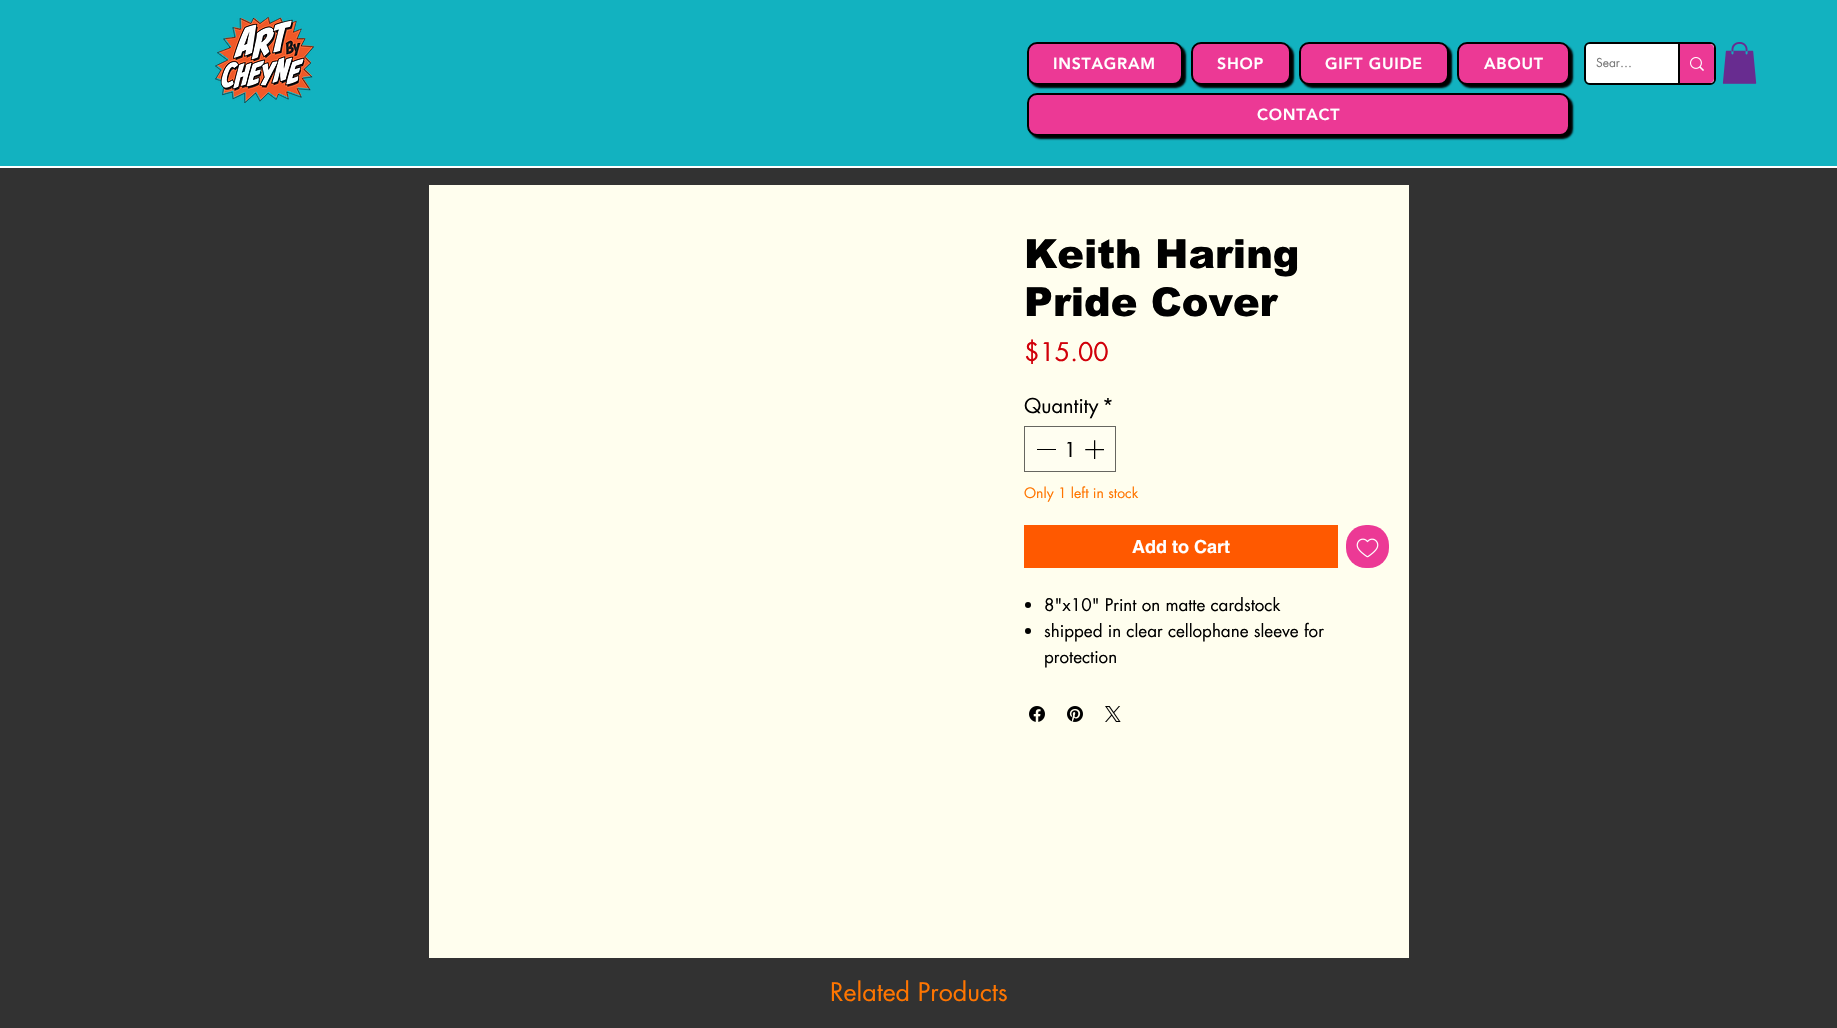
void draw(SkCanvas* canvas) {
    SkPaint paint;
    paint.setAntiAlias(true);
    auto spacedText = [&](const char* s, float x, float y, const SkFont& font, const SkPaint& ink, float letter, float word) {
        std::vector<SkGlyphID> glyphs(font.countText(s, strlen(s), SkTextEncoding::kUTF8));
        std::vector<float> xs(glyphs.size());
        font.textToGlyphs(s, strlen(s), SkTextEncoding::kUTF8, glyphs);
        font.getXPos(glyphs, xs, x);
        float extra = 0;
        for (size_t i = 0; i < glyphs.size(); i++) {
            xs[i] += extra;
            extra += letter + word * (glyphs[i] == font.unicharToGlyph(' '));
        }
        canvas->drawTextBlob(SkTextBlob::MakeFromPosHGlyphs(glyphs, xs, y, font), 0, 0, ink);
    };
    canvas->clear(0xFFFFFFFF);
    paint.setColor(0xFF12B2C0);
    canvas->drawRect(SkRect::MakeXYWH(0, 0, 1837, 166), paint);
    canvas->drawImageRect(SkImages::DeferredFromEncodedData(SkData::MakeFromFileName("img1.png")), SkRect::MakeXYWH(215, 17, 99, 86), SkSamplingOptions());
    paint.setColor(0xFF000000);
    paint.setMaskFilter(SkMaskFilter::MakeBlur(kNormal_SkBlurStyle, 1));
    canvas->drawRoundRect(SkRect::MakeXYWH(1030, 45, 156, 43), 10, 10, paint);
    paint.setMaskFilter(nullptr);
    paint.setColor(0xFFEC3995);
    canvas->drawRoundRect(SkRect::MakeXYWH(1028, 43, 154, 41), 9, 9, paint);
    paint.setStyle(SkPaint::kStroke_Style);
    paint.setStrokeWidth(2);
    paint.setColor(0xFF000000);
    canvas->drawRoundRect(SkRect::MakeXYWH(1028, 43, 154, 41), 9, 9, paint);
    SkFont font1(fontMgr->matchFamilyStyle("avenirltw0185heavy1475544", SkFontStyle(900, SkFontStyle::kNormal_Width, SkFontStyle::kUpright_Slant)), 16);
    font1.setSubpixel(true);
    paint.setStyle(SkPaint::kFill_Style);
    paint.setColor(0xFFFFFFFF);
    spacedText("INSTAGRAM", 1053, 69, font1, paint, 0.75f, 0);
    paint.setColor(0xFF000000);
    paint.setMaskFilter(SkMaskFilter::MakeBlur(kNormal_SkBlurStyle, 1));
    canvas->drawRoundRect(SkRect::MakeXYWH(1194, 45, 100, 43), 10, 10, paint);
    paint.setMaskFilter(nullptr);
    paint.setColor(0xFFEC3995);
    canvas->drawRoundRect(SkRect::MakeXYWH(1192, 43, 98, 41), 9, 9, paint);
    paint.setStyle(SkPaint::kStroke_Style);
    paint.setColor(0xFF000000);
    canvas->drawRoundRect(SkRect::MakeXYWH(1192, 43, 98, 41), 9, 9, paint);
    paint.setStyle(SkPaint::kFill_Style);
    paint.setColor(0xFFFFFFFF);
    spacedText("SHOP", 1217, 69, font1, paint, 0.75f, 0);
    paint.setColor(0xFF000000);
    paint.setMaskFilter(SkMaskFilter::MakeBlur(kNormal_SkBlurStyle, 1));
    canvas->drawRoundRect(SkRect::MakeXYWH(1302, 45, 150, 43), 10, 10, paint);
    paint.setMaskFilter(nullptr);
    paint.setColor(0xFFEC3995);
    canvas->drawRoundRect(SkRect::MakeXYWH(1300, 43, 148, 41), 9, 9, paint);
    paint.setStyle(SkPaint::kStroke_Style);
    paint.setColor(0xFF000000);
    canvas->drawRoundRect(SkRect::MakeXYWH(1300, 43, 148, 41), 9, 9, paint);
    paint.setStyle(SkPaint::kFill_Style);
    paint.setColor(0xFFFFFFFF);
    spacedText("GIFT GUIDE", 1325, 69, font1, paint, 0.75f, 0);
    paint.setColor(0xFF000000);
    paint.setMaskFilter(SkMaskFilter::MakeBlur(kNormal_SkBlurStyle, 1));
    canvas->drawRoundRect(SkRect::MakeXYWH(1460, 45, 113, 43), 10, 10, paint);
    paint.setMaskFilter(nullptr);
    paint.setColor(0xFFEC3995);
    canvas->drawRoundRect(SkRect::MakeXYWH(1458, 43, 111, 41), 9, 9, paint);
    paint.setStyle(SkPaint::kStroke_Style);
    paint.setColor(0xFF000000);
    canvas->drawRoundRect(SkRect::MakeXYWH(1458, 43, 111, 41), 9, 9, paint);
    paint.setStyle(SkPaint::kFill_Style);
    paint.setColor(0xFFFFFFFF);
    spacedText("ABOUT", 1484, 69, font1, paint, 0.75f, 0);
    paint.setColor(0xFF000000);
    paint.setMaskFilter(SkMaskFilter::MakeBlur(kNormal_SkBlurStyle, 1));
    canvas->drawRoundRect(SkRect::MakeXYWH(1030, 96, 543, 43), 10, 10, paint);
    paint.setMaskFilter(nullptr);
    paint.setColor(0xFFEC3995);
    canvas->drawRoundRect(SkRect::MakeXYWH(1028, 94, 541, 41), 9, 9, paint);
    paint.setStyle(SkPaint::kStroke_Style);
    paint.setColor(0xFF000000);
    canvas->drawRoundRect(SkRect::MakeXYWH(1028, 94, 541, 41), 9, 9, paint);
    paint.setStyle(SkPaint::kFill_Style);
    paint.setColor(0xFFFFFFFF);
    spacedText("CONTACT", 1257, 120, font1, paint, 0.75f, 0);
    paint.setStyle(SkPaint::kStroke_Style);
    paint.setColor(0xFF000000);
    canvas->drawRoundRect(SkRect::MakeXYWH(1585, 43, 130, 41), 5, 5, paint);
    paint.setStyle(SkPaint::kFill_Style);
    paint.setColor(0xFFFFFFFF);
    canvas->drawRoundRect(SkRect::MakeXYWH(1586, 44, 128, 39), 4, 4, paint);
    SkFont font2(fontMgr->matchFamilyStyle("futura", SkFontStyle::Normal()), 12);
    font2.setSubpixel(true);
    paint.setColor(0xFF787878);
    canvas->drawString("Sear…", 1596, 67, font2, paint);
    paint.setColor(0xFFEC3995);
    canvas->drawPath(SkPathBuilder().moveTo(1678, 44).lineTo(1710, 44).cubicTo(1712, 44, 1714, 46, 1714, 48).lineTo(1714, 79).cubicTo(1714, 81, 1712, 83, 1710, 83).lineTo(1678, 83).close().detach(), paint);
    paint.setColor(0xFF000000);
    canvas->drawRect(SkRect::MakeXYWH(1678, 44, 2, 39), paint);
    canvas->drawImageRect(SkImages::DeferredFromEncodedData(SkData::MakeFromFileName("img2.png")), SkRect::MakeXYWH(1690, 57, 14, 14), SkSamplingOptions());
    canvas->drawImageRect(SkImages::DeferredFromEncodedData(SkData::MakeFromFileName("img3.png")), SkRect::MakeXYWH(1722, 42, 35, 42), SkSamplingOptions());
    paint.setColor(0xFF323232);
    canvas->drawRect(SkRect::MakeXYWH(0, 168, 1837, 860), paint);
    paint.setColor(0xFFFFFEEE);
    canvas->drawRect(SkRect::MakeXYWH(429, 185, 980, 773), paint);
    SkFont font3(fontMgr->matchFamilyStyle("arial", SkFontStyle(900, SkFontStyle::kNormal_Width, SkFontStyle::kUpright_Slant)), 40);
    font3.setSubpixel(true);
    paint.setColor(0xFF000000);
    canvas->drawString("Keith Haring", 1024, 268, font3, paint);
    canvas->drawString("Pride Cover", 1024, 316, font3, paint);
    SkFont font4(fontMgr->matchFamilyStyle("futura", SkFontStyle::Normal()), 25);
    font4.setSubpixel(true);
    paint.setColor(0xFFD1000A);
    canvas->drawString("$15.00", 1024, 361, font4, paint);
    SkFont font5(fontMgr->matchFamilyStyle("futura", SkFontStyle::Normal()), 20);
    font5.setSubpixel(true);
    paint.setColor(0xFF000000);
    canvas->drawString("Quantity", 1024, 413, font5, paint);
    canvas->drawString("*", 1102, 413, font5, paint);
    paint.setColor(0xFFFFFEF1);
    canvas->drawRect(SkRect::MakeXYWH(1024.5f, 426.5f, 91, 45), paint);
    paint.setStyle(SkPaint::kStroke_Style);
    paint.setStrokeWidth(1);
    paint.setColor(0xFF666660);
    canvas->drawRect(SkRect::MakeXYWH(1024.5f, 426.5f, 91, 45), paint);
    paint.setStyle(SkPaint::kFill_Style);
    paint.setColor(0xFF000000);
    canvas->drawRect(SkRect::MakeXYWH(1037, 449, 19, 1), paint);
    canvas->drawString("1", 1064, 457, font5, paint);
    canvas->drawImageRect(SkImages::DeferredFromEncodedData(SkData::MakeFromFileName("img4.png")), SkRect::MakeXYWH(1085, 440, 19, 19), SkSamplingOptions());
    SkFont font6(fontMgr->matchFamilyStyle("futura", SkFontStyle::Normal()), 14);
    font6.setSubpixel(true);
    paint.setColor(0xFFFF7500);
    canvas->drawString("Only 1 left in stock", 1024, 498, font6, paint);
    paint.setColor(0xFFFF5900);
    canvas->drawRect(SkRect::MakeXYWH(1024, 525, 314, 43), paint);
    SkFont font7(fontMgr->matchFamilyStyle("helvetica", SkFontStyle::Bold()), 18);
    font7.setSubpixel(true);
    paint.setColor(0xFFFFFFFF);
    canvas->drawString("Add to Cart", 1132, 553, font7, paint);
    paint.setColor(0xFFEC3995);
    canvas->drawRoundRect(SkRect::MakeXYWH(1346, 525, 43, 43), 20, 20, paint);
    canvas->drawImageRect(SkImages::DeferredFromEncodedData(SkData::MakeFromFileName("img5.png")), SkRect::MakeXYWH(1356, 538, 23, 20), SkSamplingOptions());
    paint.setColor(0xFF000000);
    canvas->drawCircle(1028, 605, 3, paint);
    SkFont font8(fontMgr->matchFamilyStyle("futura", SkFontStyle::Normal()), 17);
    font8.setSubpixel(true);
    canvas->drawString("8\"x10\" Print on matte cardstock", 1044, 611, font8, paint);
    canvas->drawCircle(1028, 631, 3, paint);
    canvas->drawString("shipped in clear cellophane sleeve for", 1044, 637, font8, paint);
    canvas->drawString("protection", 1044, 663, font8, paint);
    canvas->drawImageRect(SkImages::DeferredFromEncodedData(SkData::MakeFromFileName("img6.png")), SkRect::MakeXYWH(1029, 706, 16, 16), SkSamplingOptions());
    canvas->drawImageRect(SkImages::DeferredFromEncodedData(SkData::MakeFromFileName("img7.png")), SkRect::MakeXYWH(1067, 706, 16, 16), SkSamplingOptions());
    canvas->drawImageRect(SkImages::DeferredFromEncodedData(SkData::MakeFromFileName("img8.png")), SkRect::MakeXYWH(1105, 706, 16, 16), SkSamplingOptions());
    paint.setColor(0xFFFF7500);
    canvas->drawString("Related Products", 830, 1001, font4, paint);
}
